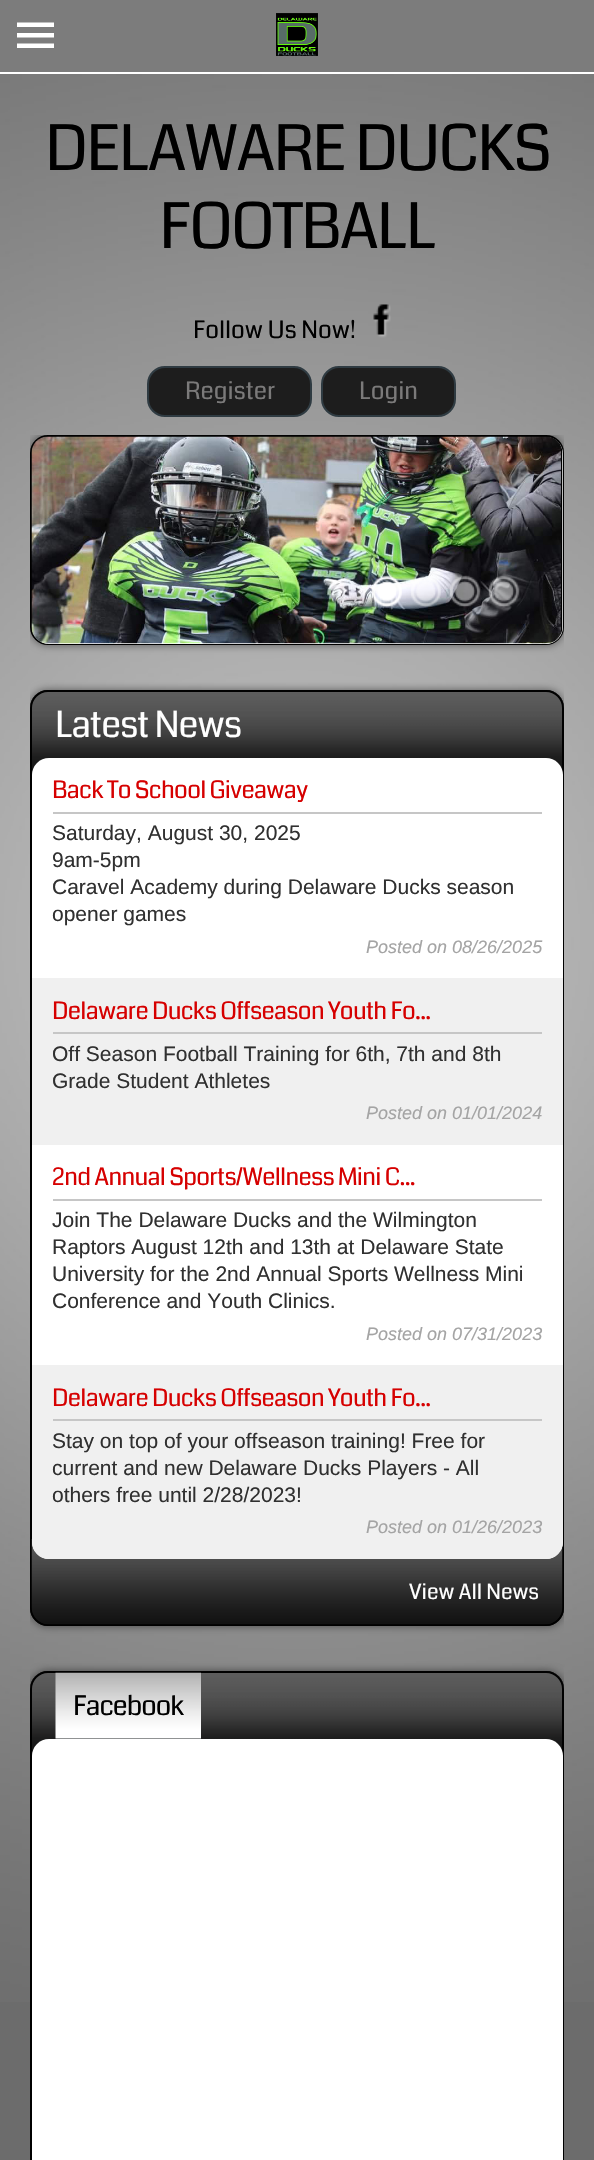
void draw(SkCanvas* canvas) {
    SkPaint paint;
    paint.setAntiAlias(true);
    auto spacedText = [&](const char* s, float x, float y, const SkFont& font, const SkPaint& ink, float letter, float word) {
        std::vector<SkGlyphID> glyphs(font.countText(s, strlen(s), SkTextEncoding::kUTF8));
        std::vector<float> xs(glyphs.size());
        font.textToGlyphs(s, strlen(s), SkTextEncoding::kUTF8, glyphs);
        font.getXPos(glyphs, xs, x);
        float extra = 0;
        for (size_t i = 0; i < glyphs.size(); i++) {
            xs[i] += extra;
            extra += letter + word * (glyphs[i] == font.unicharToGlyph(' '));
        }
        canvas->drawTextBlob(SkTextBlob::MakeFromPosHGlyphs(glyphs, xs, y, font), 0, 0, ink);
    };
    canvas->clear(0xFF6C6C6C);
    paint.setColor(0xFF7C7C7C);
    canvas->drawRect(SkRect::MakeXYWH(0, 0, 594, 72), paint);
    paint.setColor(0xFFFFFFFF);
    canvas->drawRect(SkRect::MakeXYWH(0, 72, 594, 2), paint);
    canvas->save();
    canvas->clipRect(SkRect::MakeXYWH(17, 17, 37, 37));
    canvas->drawPath(SkPathBuilder().moveTo(16.5f, 22.5f).lineTo(54, 22.5f).lineTo(54, 27).lineTo(16.5f, 27).close().moveTo(16.5f, 33).lineTo(54, 33).lineTo(54, 37.5f).lineTo(16.5f, 37.5f).close().moveTo(16.5f, 43.5f).lineTo(54, 43.5f).lineTo(54, 48).lineTo(16.5f, 48).close().detach(), paint);
    canvas->restore();
    canvas->drawImageRect(SkImages::DeferredFromEncodedData(SkData::MakeFromFileName("img1.png")), SkRect::MakeXYWH(276, 13, 42, 43), SkSamplingOptions());
    canvas->drawImageRect(SkImages::DeferredFromEncodedData(SkData::MakeFromFileName("img2.png")), SkRect::MakeXYWH(0, 74, 594, 1928), SkSamplingOptions());
    SkFont font1(fontMgr->matchFamilyStyle("Coda", SkFontStyle::Normal()), 63);
    font1.setSubpixel(true);
    paint.setColor(0xFF000000);
    spacedText("DELAWARE DUCKS", 45, 170, font1, paint, -1.9f, 0);
    spacedText("FOOTBALL", 159, 248, font1, paint, -1.9f, 0);
    SkFont font2(fontMgr->matchFamilyStyle("Coda", SkFontStyle::Normal()), 24);
    font2.setSubpixel(true);
    canvas->drawString("Follow Us Now!", 193, 338, font2, paint);
    canvas->drawImageRect(SkImages::DeferredFromEncodedData(SkData::MakeFromFileName("img3.png")), SkRect::MakeXYWH(373, 304, 18, 34), SkSamplingOptions());
    paint.setColor(0xFF1D1D1D);
    canvas->drawRoundRect(SkRect::MakeXYWH(148, 367, 163, 49), 17, 17, paint);
    paint.setStyle(SkPaint::kStroke_Style);
    paint.setStrokeWidth(2);
    paint.setColor(0xFF2F3B42);
    canvas->drawRoundRect(SkRect::MakeXYWH(148, 367, 163, 49), 17, 17, paint);
    paint.setStyle(SkPaint::kFill_Style);
    paint.setColor(0xFF7B7A7A);
    canvas->drawString("Register", 185, 399, font2, paint);
    paint.setColor(0xFF1D1D1D);
    canvas->drawRoundRect(SkRect::MakeXYWH(322, 367, 133, 49), 17, 17, paint);
    paint.setStyle(SkPaint::kStroke_Style);
    paint.setColor(0xFF2F3B42);
    canvas->drawRoundRect(SkRect::MakeXYWH(322, 367, 133, 49), 17, 17, paint);
    paint.setStyle(SkPaint::kFill_Style);
    paint.setColor(0xFF7B7A7A);
    canvas->drawString("Login", 359, 399, font2, paint);
    canvas->save();
    canvas->clipRect(SkRect::MakeXYWH(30, 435, 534, 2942));
    paint.setColor(0x80000000);
    paint.setMaskFilter(SkMaskFilter::MakeBlur(kNormal_SkBlurStyle, 4.5f));
    canvas->drawRoundRect(SkRect::MakeXYWH(30, 435, 534, 210), 18, 18, paint);
    paint.setMaskFilter(nullptr);
    canvas->restore();
    canvas->drawImageRect(SkImages::DeferredFromEncodedData(SkData::MakeFromFileName("img4.png")), SkRect::MakeXYWH(30, 436, 534, 17), SkSamplingOptions());
    paint.setStyle(SkPaint::kStroke_Style);
    paint.setColor(0xFF000000);
    canvas->drawRoundRect(SkRect::MakeXYWH(31, 436, 532, 208), 17, 17, paint);
    paint.setStyle(SkPaint::kFill_Style);
    paint.setColor(0xFFFFFFFF);
    canvas->drawRoundRect(SkRect::MakeXYWH(32, 437, 531, 207), 17, 17, paint);
    canvas->drawImageRect(SkImages::DeferredFromEncodedData(SkData::MakeFromFileName("img5.png")), SkRect::MakeXYWH(31, 436, 532, 208), SkSamplingOptions());
    canvas->drawImageRect(SkImages::DeferredFromEncodedData(SkData::MakeFromFileName("img6.png")), SkRect::MakeXYWH(370, 575, 32, 33), SkSamplingOptions());
    canvas->drawImageRect(SkImages::DeferredFromEncodedData(SkData::MakeFromFileName("img7.png")), SkRect::MakeXYWH(411, 575, 30, 33), SkSamplingOptions());
    canvas->drawImageRect(SkImages::DeferredFromEncodedData(SkData::MakeFromFileName("img8.png")), SkRect::MakeXYWH(449, 575, 32, 33), SkSamplingOptions());
    canvas->drawImageRect(SkImages::DeferredFromEncodedData(SkData::MakeFromFileName("img9.png")), SkRect::MakeXYWH(487, 575, 33, 33), SkSamplingOptions());
    canvas->save();
    canvas->clipRect(SkRect::MakeXYWH(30, 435, 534, 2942));
    paint.setColor(0x80000000);
    paint.setMaskFilter(SkMaskFilter::MakeBlur(kNormal_SkBlurStyle, 4.5f));
    canvas->drawRoundRect(SkRect::MakeXYWH(30, 690, 534, 936), 18, 18, paint);
    paint.setMaskFilter(nullptr);
    canvas->restore();
    paint.setColor(0xFF121212);
    canvas->drawRoundRect(SkRect::MakeXYWH(30, 690, 534, 936), 18, 18, paint);
    canvas->drawImageRect(SkImages::DeferredFromEncodedData(SkData::MakeFromFileName("img10.png")), SkRect::MakeXYWH(30, 691, 534, 77), SkSamplingOptions());
    paint.setStyle(SkPaint::kStroke_Style);
    paint.setColor(0xFF000000);
    canvas->drawRoundRect(SkRect::MakeXYWH(31, 691, 532, 934), 17, 17, paint);
    canvas->drawImageRect(SkImages::DeferredFromEncodedData(SkData::MakeFromFileName("img11.png")), SkRect::MakeXYWH(31, 1539, 532, 86), SkSamplingOptions());
    SkFont font3(fontMgr->matchFamilyStyle("Coda", SkFontStyle::Normal()), 36);
    font3.setSubpixel(true);
    paint.setStyle(SkPaint::kFill_Style);
    paint.setColor(0xFFFFFFFF);
    spacedText("Latest News", 55, 737, font3, paint, -1, 0);
    canvas->drawRoundRect(SkRect::MakeXYWH(32, 758, 531, 801), 17, 17, paint);
    paint.setColor(0xFFC6C6C6);
    canvas->drawRect(SkRect::MakeXYWH(53, 812, 489, 2), paint);
    paint.setColor(0xFFD60000);
    spacedText("Back To School Giveaway", 52, 798, font2, paint, -0.7f, 0);
    SkFont font4(fontMgr->matchFamilyStyle("Liberation Sans", SkFontStyle::Normal()), 21);
    font4.setSubpixel(true);
    paint.setColor(0xFF303030);
    canvas->drawString("Saturday, August 30, 2025", 52, 840, font4, paint);
    canvas->drawString("9am-5pm", 52, 867, font4, paint);
    canvas->drawString("Caravel Academy during Delaware Ducks season", 52, 894, font4, paint);
    canvas->drawString("opener games", 52, 921, font4, paint);
    SkFont font5(fontMgr->matchFamilyStyle("Liberation Sans", SkFontStyle::Italic()), 18);
    font5.setSubpixel(true);
    paint.setColor(0xFFA4A4A4);
    canvas->drawString("Posted on 08/26/2025", 366, 953, font5, paint);
    paint.setColor(0xFFF0F0F0);
    canvas->drawRect(SkRect::MakeXYWH(32, 978, 531, 167), paint);
    paint.setColor(0xFFC6C6C6);
    canvas->drawRect(SkRect::MakeXYWH(53, 1032, 489, 2), paint);
    paint.setColor(0xFFD60000);
    spacedText("Delaware Ducks Offseason Youth Fo...", 52, 1019, font2, paint, -0.7f, 0);
    paint.setColor(0xFF303030);
    canvas->drawString("Off Season Football Training for 6th, 7th and 8th", 52, 1061, font4, paint);
    canvas->drawString("Grade Student Athletes", 52, 1088, font4, paint);
    paint.setColor(0xFFA4A4A4);
    canvas->drawString("Posted on 01/01/2024", 366, 1119, font5, paint);
    paint.setColor(0xFFC6C6C6);
    canvas->drawRect(SkRect::MakeXYWH(53, 1199, 489, 2), paint);
    paint.setColor(0xFFD60000);
    spacedText("2nd Annual Sports/Wellness Mini C...", 52, 1185, font2, paint, -0.7f, 0);
    paint.setColor(0xFF303030);
    canvas->drawString("Join The Delaware Ducks and the Wilmington", 52, 1227, font4, paint);
    canvas->drawString("Raptors August 12th and 13th at Delaware State", 52, 1254, font4, paint);
    canvas->drawString("University for the 2nd Annual Sports Wellness Mini", 52, 1281, font4, paint);
    canvas->drawString("Conference and Youth Clinics.", 52, 1308, font4, paint);
    paint.setColor(0xFFA4A4A4);
    canvas->drawString("Posted on 07/31/2023", 366, 1340, font5, paint);
    paint.setColor(0xFFF0F0F0);
    canvas->drawPath(SkPathBuilder().moveTo(32, 1365).lineTo(563, 1365).lineTo(563, 1542).cubicTo(563, 1551.5f, 555.5f, 1559, 546, 1559).lineTo(49, 1559).cubicTo(39.5f, 1559, 32, 1551.5f, 32, 1542).close().detach(), paint);
    paint.setColor(0xFFC6C6C6);
    canvas->drawRect(SkRect::MakeXYWH(53, 1419, 489, 2), paint);
    paint.setColor(0xFFD60000);
    spacedText("Delaware Ducks Offseason Youth Fo...", 52, 1406, font2, paint, -0.7f, 0);
    paint.setColor(0xFF303030);
    canvas->drawString("Stay on top of your offseason training! Free for", 52, 1448, font4, paint);
    canvas->drawString("current and new Delaware Ducks Players - All", 52, 1475, font4, paint);
    canvas->drawString("others free until 2/28/2023!", 52, 1502, font4, paint);
    paint.setColor(0xFFA4A4A4);
    canvas->drawString("Posted on 01/26/2023", 366, 1533, font5, paint);
    SkFont font6(fontMgr->matchFamilyStyle("Coda", SkFontStyle::Normal()), 21);
    font6.setSubpixel(true);
    paint.setColor(0xFFFFFFFF);
    canvas->drawString("View All News", 409, 1599, font6, paint);
    canvas->save();
    canvas->clipRect(SkRect::MakeXYWH(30, 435, 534, 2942));
    paint.setColor(0x80000000);
    paint.setMaskFilter(SkMaskFilter::MakeBlur(kNormal_SkBlurStyle, 4.5f));
    canvas->drawRoundRect(SkRect::MakeXYWH(30, 1671, 534, 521), 18, 18, paint);
    paint.setMaskFilter(nullptr);
    canvas->restore();
    paint.setColor(0xFF121212);
    canvas->drawRoundRect(SkRect::MakeXYWH(30, 1671, 534, 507), 18, 18, paint);
    canvas->drawImageRect(SkImages::DeferredFromEncodedData(SkData::MakeFromFileName("img12.png")), SkRect::MakeXYWH(30, 1672, 534, 77), SkSamplingOptions());
    paint.setStyle(SkPaint::kStroke_Style);
    paint.setColor(0xFF000000);
    canvas->drawRoundRect(SkRect::MakeXYWH(31, 1672, 532, 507), 17, 17, paint);
    paint.setStyle(SkPaint::kFill_Style);
    paint.setColor(0xFF1F2325);
    canvas->drawRect(SkRect::MakeXYWH(56, 1738, 145, 1), paint);
    canvas->drawImageRect(SkImages::DeferredFromEncodedData(SkData::MakeFromFileName("img13.png")), SkRect::MakeXYWH(55, 1672, 146, 67), SkSamplingOptions());
    SkFont font7(fontMgr->matchFamilyStyle("Coda", SkFontStyle::Normal()), 27);
    font7.setSubpixel(true);
    paint.setColor(0xFF000000);
    spacedText("Facebook", 73, 1715, font7, paint, -1, 0);
    paint.setColor(0xFFFFFFFF);
    canvas->drawRoundRect(SkRect::MakeXYWH(32, 1739, 531, 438), 17, 17, paint);
}
